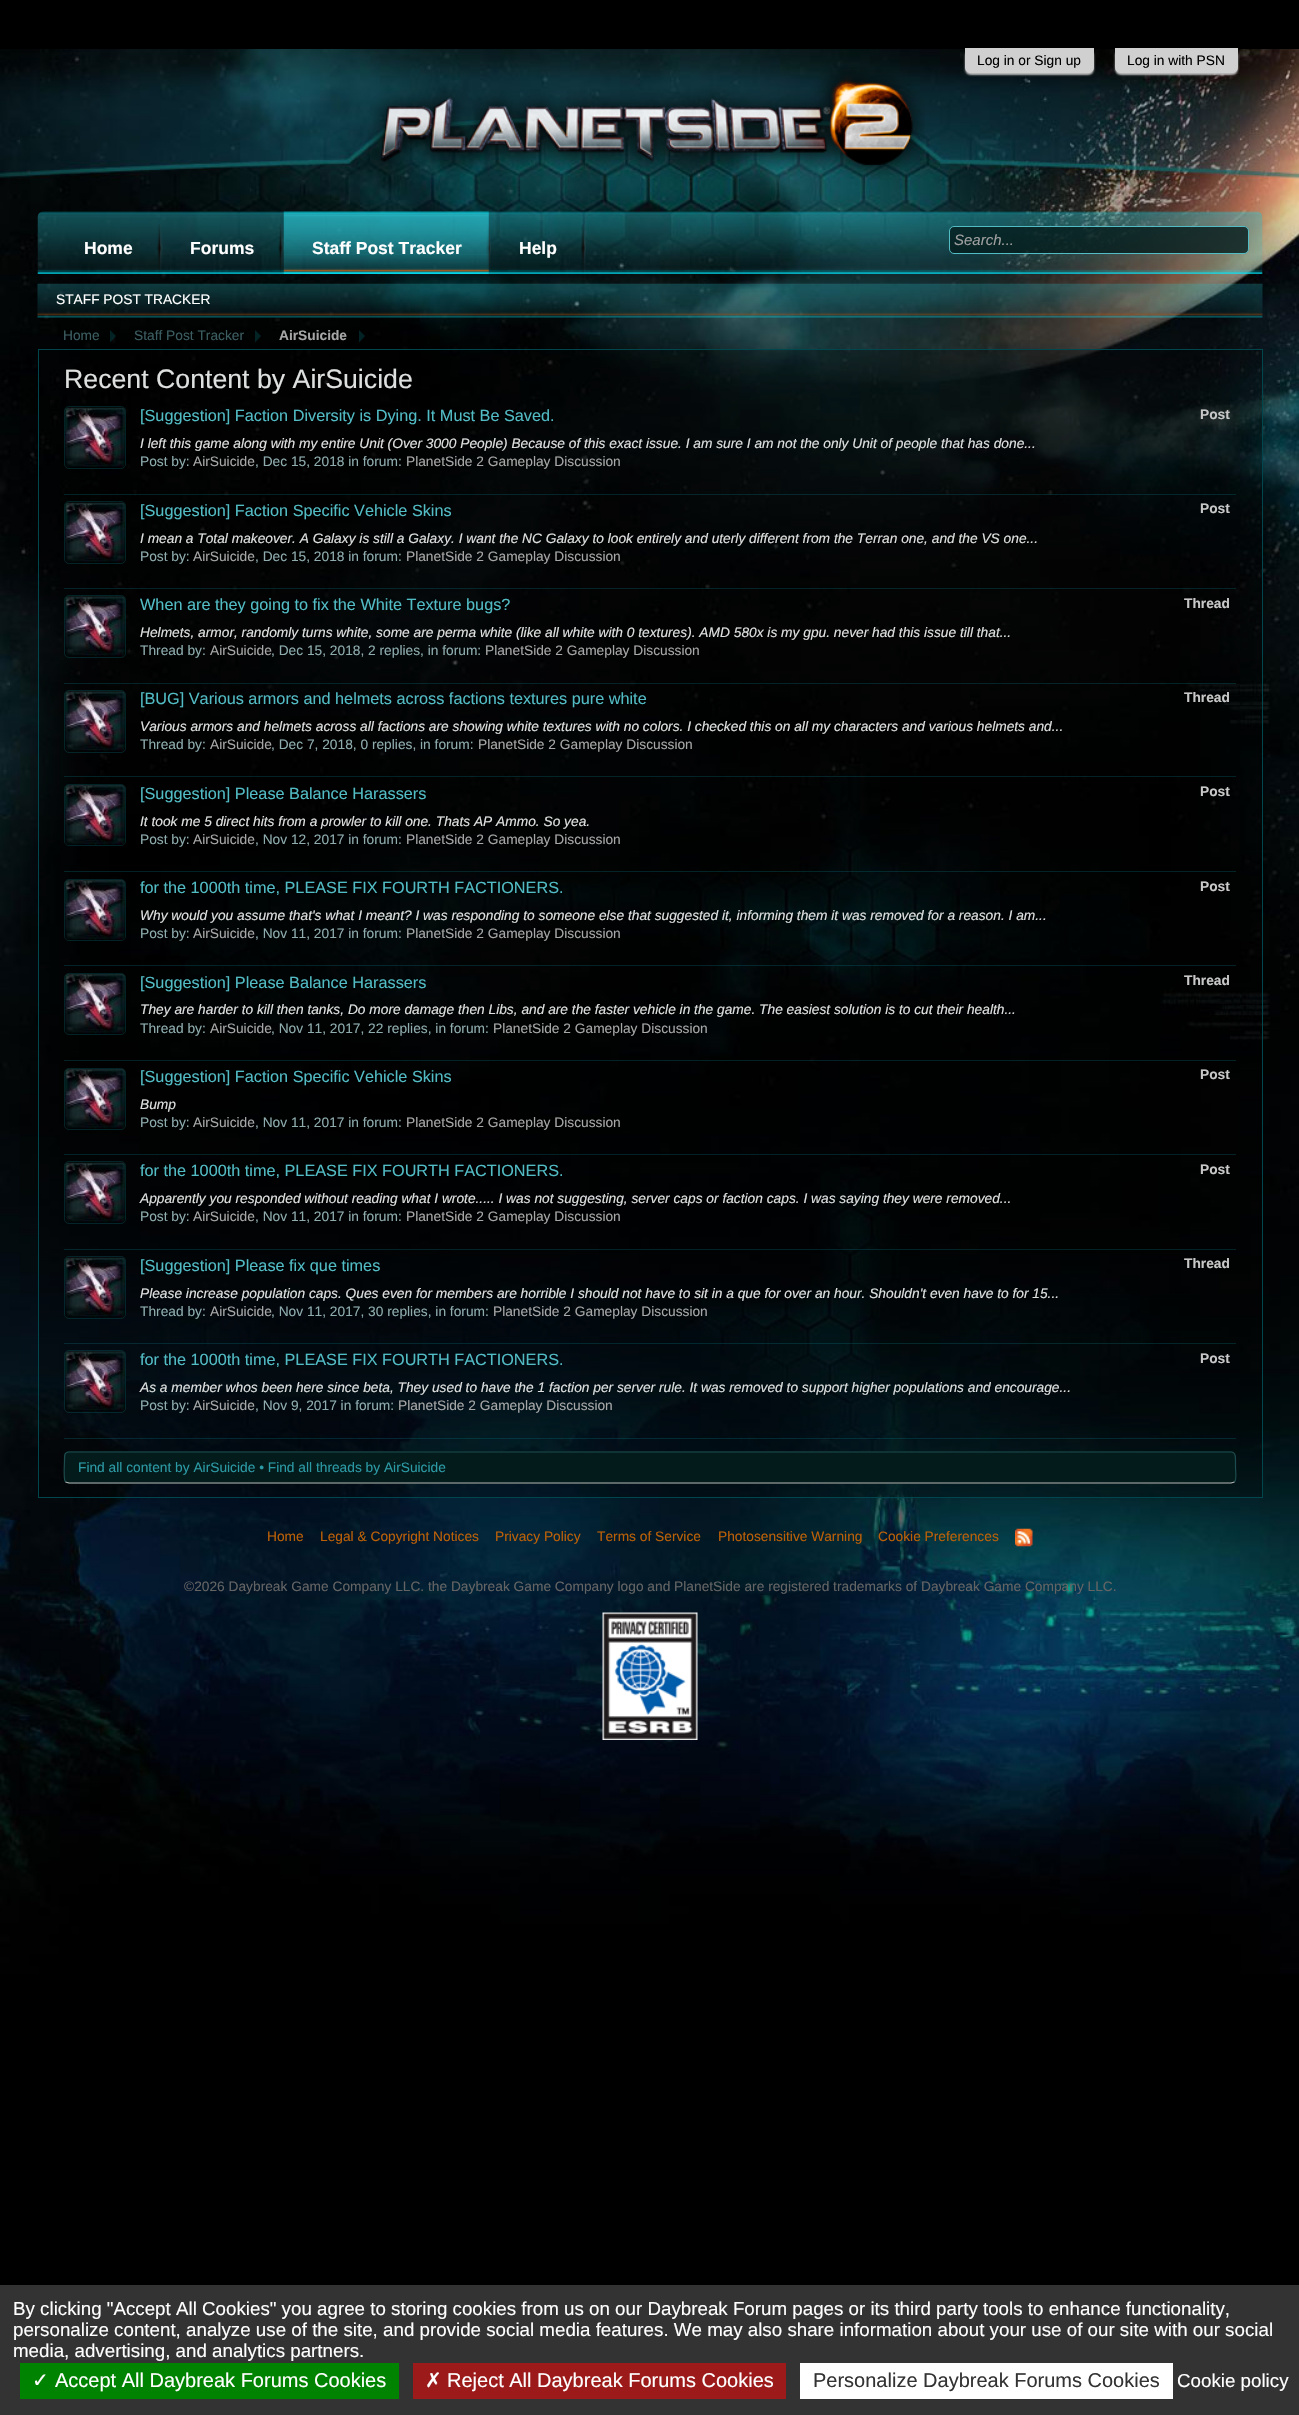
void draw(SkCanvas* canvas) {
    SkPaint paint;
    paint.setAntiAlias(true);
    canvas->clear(0xFF000000);
    canvas->drawImageRect(SkImages::DeferredFromEncodedData(SkData::MakeFromFileName("img1.png")), SkRect::MakeXYWH(0, 49, 1299, 1925), SkSamplingOptions());
    paint.setColor(0xFFBCBCBC);
    paint.setMaskFilter(SkMaskFilter::MakeBlur(kNormal_SkBlurStyle, 1));
    canvas->drawRoundRect(SkRect::MakeXYWH(965, 50, 129, 25), 6, 6, paint);
    paint.setMaskFilter(nullptr);
    paint.setColor(0xFFD0D0D0);
    canvas->drawPath(SkPathBuilder().moveTo(965, 48).lineTo(1094, 48).lineTo(1094, 67).cubicTo(1094, 70.5f, 1091.5f, 73, 1088, 73).lineTo(971, 73).cubicTo(967.5f, 73, 965, 70.5f, 965, 67).close().detach(), paint);
    SkFont font1(fontMgr->matchFamilyStyle("Liberation Sans", SkFontStyle::Normal()), 13.75f);
    font1.setSubpixel(true);
    paint.setColor(0xFF000000);
    canvas->drawString("Log in or Sign up", 977, 65, font1, paint);
    paint.setColor(0xFFBCBCBC);
    paint.setMaskFilter(SkMaskFilter::MakeBlur(kNormal_SkBlurStyle, 1));
    canvas->drawRoundRect(SkRect::MakeXYWH(1115, 50, 123, 25), 6, 6, paint);
    paint.setMaskFilter(nullptr);
    paint.setColor(0xFFD0D0D0);
    canvas->drawPath(SkPathBuilder().moveTo(1115, 48).lineTo(1238, 48).lineTo(1238, 67).cubicTo(1238, 70.5f, 1235.5f, 73, 1232, 73).lineTo(1121, 73).cubicTo(1117.5f, 73, 1115, 70.5f, 1115, 67).close().detach(), paint);
    paint.setColor(0xFF000000);
    canvas->drawString("Log in with PSN", 1127, 65, font1, paint);
    canvas->drawImageRect(SkImages::DeferredFromEncodedData(SkData::MakeFromFileName("img2.png")), SkRect::MakeXYWH(368, 67, 557, 113), SkSamplingOptions());
    canvas->drawImageRect(SkImages::DeferredFromEncodedData(SkData::MakeFromFileName("img3.png")), SkRect::MakeXYWH(37, 211, 1226, 63), SkSamplingOptions());
    canvas->drawImageRect(SkImages::DeferredFromEncodedData(SkData::MakeFromFileName("img4.png")), SkRect::MakeXYWH(486, 224, 5, 49), SkSamplingOptions());
    canvas->drawImageRect(SkImages::DeferredFromEncodedData(SkData::MakeFromFileName("img5.png")), SkRect::MakeXYWH(283, 211, 206, 63), SkSamplingOptions());
    SkFont font2(fontMgr->matchFamilyStyle("Liberation Sans", SkFontStyle::Bold()), 17.5f);
    font2.setSubpixel(true);
    paint.setColor(0xFFFFFFFF);
    canvas->drawString("Staff Post Tracker", 312, 254, font2, paint);
    canvas->drawImageRect(SkImages::DeferredFromEncodedData(SkData::MakeFromFileName("img6.png")), SkRect::MakeXYWH(37, 283, 1226, 35), SkSamplingOptions());
    canvas->drawString("STAFF POST TRACKER", 56, 304, font1, paint);
    canvas->drawImageRect(SkImages::DeferredFromEncodedData(SkData::MakeFromFileName("img7.png")), SkRect::MakeXYWH(157, 224, 6, 49), SkSamplingOptions());
    canvas->drawString("Home", 84, 254, font2, paint);
    canvas->drawImageRect(SkImages::DeferredFromEncodedData(SkData::MakeFromFileName("img8.png")), SkRect::MakeXYWH(278, 224, 6, 49), SkSamplingOptions());
    canvas->drawString("Forums", 190, 254, font2, paint);
    canvas->drawImageRect(SkImages::DeferredFromEncodedData(SkData::MakeFromFileName("img9.png")), SkRect::MakeXYWH(581, 224, 5, 49), SkSamplingOptions());
    canvas->drawString("Help", 519, 254, font2, paint);
    paint.setColor(0xCC041B1B);
    canvas->drawRoundRect(SkRect::MakeXYWH(949.5f, 226.5f, 299, 27), 4.5f, 4.5f, paint);
    paint.setStyle(SkPaint::kStroke_Style);
    paint.setStrokeWidth(1);
    paint.setColor(0xFF52BCC5);
    canvas->drawRoundRect(SkRect::MakeXYWH(949.5f, 226.5f, 299, 27), 4.5f, 4.5f, paint);
    SkFont font3(fontMgr->matchFamilyStyle("Liberation Sans", SkFontStyle::Italic()), 15);
    font3.setSubpixel(true);
    paint.setStyle(SkPaint::kFill_Style);
    paint.setColor(0xFFA0A0A0);
    canvas->drawString("Search...", 954, 245, font3, paint);
    paint.setColor(0xFF3B5D61);
    canvas->drawString("Home", 63, 340, font1, paint);
    paint.setColor(0x45097B85);
    canvas->drawPath(SkPathBuilder().moveTo(110, 342.5f).lineTo(110, 330).lineTo(116, 336).close().detach(), paint);
    paint.setColor(0xFF3B5D61);
    canvas->drawString("Staff Post Tracker", 134, 340, font1, paint);
    paint.setColor(0xFF032325);
    canvas->drawPath(SkPathBuilder().moveTo(255, 342.5f).lineTo(255, 330).lineTo(261, 336).close().detach(), paint);
    SkFont font4(fontMgr->matchFamilyStyle("Liberation Sans", SkFontStyle::Bold()), 13.75f);
    font4.setSubpixel(true);
    paint.setColor(0xFFA7A7A7);
    canvas->drawString("AirSuicide", 279, 340, font4, paint);
    paint.setColor(0xFF032225);
    canvas->drawPath(SkPathBuilder().moveTo(359, 342.5f).lineTo(359, 330).lineTo(365, 336).close().detach(), paint);
    paint.setColor(0x4F000000);
    canvas->drawRect(SkRect::MakeXYWH(38.5f, 349.5f, 1224, 1148), paint);
    paint.setStyle(SkPaint::kStroke_Style);
    paint.setColor(0xFF00464C);
    canvas->drawRect(SkRect::MakeXYWH(38.5f, 349.5f, 1224, 1148), paint);
    SkFont font5(fontMgr->matchFamilyStyle("Liberation Sans", SkFontStyle::Normal()), 26.7f);
    font5.setSubpixel(true);
    paint.setStyle(SkPaint::kFill_Style);
    paint.setColor(0xFFDEE0DF);
    canvas->drawString("Recent Content by AirSuicide", 64, 388, font5, paint);
    paint.setColor(0x45097B85);
    canvas->drawRect(SkRect::MakeXYWH(64, 494, 1172, 1), paint);
    paint.setColor(0x4F000000);
    canvas->drawRoundRect(SkRect::MakeXYWH(64, 406, 62, 63), 5, 5, paint);
    paint.setStyle(SkPaint::kStroke_Style);
    paint.setColor(0x45097B85);
    canvas->drawRoundRect(SkRect::MakeXYWH(64.5f, 406.5f, 61, 62), 4.5f, 4.5f, paint);
    canvas->drawImageRect(SkImages::DeferredFromEncodedData(SkData::MakeFromFileName("img10.png")), SkRect::MakeXYWH(65, 407, 60, 60), SkSamplingOptions());
    SkFont font6(fontMgr->matchFamilyStyle("Liberation Sans", SkFontStyle::Normal()), 16.25f);
    font6.setSubpixel(true);
    paint.setStyle(SkPaint::kFill_Style);
    paint.setColor(0xFF52BCC5);
    canvas->drawString("[Suggestion] Faction Diversity is Dying. It Must Be Saved.", 140, 421, font6, paint);
    paint.setColor(0xFFC8C8C8);
    canvas->drawString("Post", 1200, 419, font4, paint);
    SkFont font7(fontMgr->matchFamilyStyle("Liberation Sans", SkFontStyle::Italic()), 13.75f);
    font7.setSubpixel(true);
    paint.setColor(0xFFDEE0DF);
    canvas->drawString("I left this game along with my entire Unit (Over 3000 People) Because of this exact issue. I am sure I am not the only Unit of people that has done...", 140, 448, font7, paint);
    paint.setColor(0xFF8EACAE);
    canvas->drawString("Post by:", 140, 466, font1, paint);
    paint.setColor(0xFFA7A7A7);
    canvas->drawString("AirSuicide", 193, 466, font1, paint);
    paint.setColor(0xFF8EACAE);
    canvas->drawString(", Dec 15, 2018 in forum:", 255, 466, font1, paint);
    paint.setColor(0xFFA7A7A7);
    canvas->drawString("PlanetSide 2 Gameplay Discussion", 406, 466, font1, paint);
    paint.setColor(0x45097B85);
    canvas->drawRect(SkRect::MakeXYWH(64, 588, 1172, 1), paint);
    paint.setStyle(SkPaint::kStroke_Style);
    canvas->drawRoundRect(SkRect::MakeXYWH(64.5f, 501.5f, 61, 62), 4.5f, 4.5f, paint);
    canvas->drawImageRect(SkImages::DeferredFromEncodedData(SkData::MakeFromFileName("img11.png")), SkRect::MakeXYWH(65, 502, 60, 60), SkSamplingOptions());
    paint.setStyle(SkPaint::kFill_Style);
    paint.setColor(0xFF52BCC5);
    canvas->drawString("[Suggestion] Faction Specific Vehicle Skins", 140, 516, font6, paint);
    paint.setColor(0xFFC8C8C8);
    canvas->drawString("Post", 1200, 513, font4, paint);
    paint.setColor(0xFFDEE0DF);
    canvas->drawString("I mean a Total makeover. A Galaxy is still a Galaxy. I want the NC Galaxy to look entirely and uterly different from the Terran one, and the VS one...", 140, 543, font7, paint);
    paint.setColor(0xFF8EACAE);
    canvas->drawString("Post by:", 140, 561, font1, paint);
    paint.setColor(0xFFA7A7A7);
    canvas->drawString("AirSuicide", 193, 561, font1, paint);
    paint.setColor(0xFF8EACAE);
    canvas->drawString(", Dec 15, 2018 in forum:", 255, 561, font1, paint);
    paint.setColor(0xFFA7A7A7);
    canvas->drawString("PlanetSide 2 Gameplay Discussion", 406, 561, font1, paint);
    paint.setColor(0x45097B85);
    canvas->drawRect(SkRect::MakeXYWH(64, 683, 1172, 1), paint);
    paint.setColor(0x4F000000);
    canvas->drawRoundRect(SkRect::MakeXYWH(64, 595, 62, 63), 5, 5, paint);
    paint.setStyle(SkPaint::kStroke_Style);
    paint.setColor(0x45097B85);
    canvas->drawRoundRect(SkRect::MakeXYWH(64.5f, 595.5f, 61, 62), 4.5f, 4.5f, paint);
    canvas->drawImageRect(SkImages::DeferredFromEncodedData(SkData::MakeFromFileName("img12.png")), SkRect::MakeXYWH(65, 596, 60, 60), SkSamplingOptions());
    paint.setStyle(SkPaint::kFill_Style);
    paint.setColor(0xFF52BCC5);
    canvas->drawString("When are they going to fix the White Texture bugs?", 140, 610, font6, paint);
    paint.setColor(0xFFC8C8C8);
    canvas->drawString("Thread", 1184, 608, font4, paint);
    paint.setColor(0xFFDEE0DF);
    canvas->drawString("Helmets, armor, randomly turns white, some are perma white (like all white with 0 textures). AMD 580x is my gpu. never had this issue till that...", 140, 637, font7, paint);
    paint.setColor(0xFF8EACAE);
    canvas->drawString("Thread by:", 140, 655, font1, paint);
    paint.setColor(0xFFA7A7A7);
    canvas->drawString("AirSuicide", 210, 655, font1, paint);
    paint.setColor(0xFF8EACAE);
    canvas->drawString(", Dec 15, 2018, 2 replies, in forum:", 271, 655, font1, paint);
    paint.setColor(0xFFA7A7A7);
    canvas->drawString("PlanetSide 2 Gameplay Discussion", 485, 655, font1, paint);
    paint.setColor(0x45097B85);
    canvas->drawRect(SkRect::MakeXYWH(64, 776, 1172, 1), paint);
    paint.setColor(0x4F000000);
    canvas->drawRoundRect(SkRect::MakeXYWH(64, 690, 62, 63), 5, 5, paint);
    paint.setStyle(SkPaint::kStroke_Style);
    paint.setColor(0x45097B85);
    canvas->drawRoundRect(SkRect::MakeXYWH(64.5f, 690.5f, 61, 62), 4.5f, 4.5f, paint);
    canvas->drawImageRect(SkImages::DeferredFromEncodedData(SkData::MakeFromFileName("img13.png")), SkRect::MakeXYWH(65, 691, 60, 60), SkSamplingOptions());
    paint.setStyle(SkPaint::kFill_Style);
    paint.setColor(0xFF52BCC5);
    canvas->drawString("[BUG] Various armors and helmets across factions textures pure white", 140, 704, font6, paint);
    paint.setColor(0xFFC8C8C8);
    canvas->drawString("Thread", 1184, 702, font4, paint);
    paint.setColor(0xFFDEE0DF);
    canvas->drawString("Various armors and helmets across all factions are showing white textures with no colors. I checked this on all my characters and various helmets and...", 140, 731, font7, paint);
    paint.setColor(0xFF8EACAE);
    canvas->drawString("Thread by:", 140, 749, font1, paint);
    paint.setColor(0xFFA7A7A7);
    canvas->drawString("AirSuicide", 210, 749, font1, paint);
    paint.setColor(0xFF8EACAE);
    canvas->drawString(", Dec 7, 2018, 0 replies, in forum:", 271, 749, font1, paint);
    paint.setColor(0xFFA7A7A7);
    canvas->drawString("PlanetSide 2 Gameplay Discussion", 478, 749, font1, paint);
    paint.setColor(0x45097B85);
    canvas->drawRect(SkRect::MakeXYWH(64, 871, 1172, 1), paint);
    paint.setColor(0x4F000000);
    canvas->drawRoundRect(SkRect::MakeXYWH(64, 784, 62, 62), 5, 5, paint);
    paint.setStyle(SkPaint::kStroke_Style);
    paint.setColor(0x45097B85);
    canvas->drawRoundRect(SkRect::MakeXYWH(64.5f, 784.5f, 61, 61), 4.5f, 4.5f, paint);
    canvas->drawImageRect(SkImages::DeferredFromEncodedData(SkData::MakeFromFileName("img14.png")), SkRect::MakeXYWH(65, 785, 60, 60), SkSamplingOptions());
    paint.setStyle(SkPaint::kFill_Style);
    paint.setColor(0xFF52BCC5);
    canvas->drawString("[Suggestion] Please Balance Harassers", 140, 799, font6, paint);
    paint.setColor(0xFFC8C8C8);
    canvas->drawString("Post", 1200, 796, font4, paint);
    paint.setColor(0xFFDEE0DF);
    canvas->drawString("It took me 5 direct hits from a prowler to kill one. Thats AP Ammo. So yea.", 140, 826, font7, paint);
    paint.setColor(0xFF8EACAE);
    canvas->drawString("Post by:", 140, 844, font1, paint);
    paint.setColor(0xFFA7A7A7);
    canvas->drawString("AirSuicide", 193, 844, font1, paint);
    paint.setColor(0xFF8EACAE);
    canvas->drawString(", Nov 12, 2017 in forum:", 255, 844, font1, paint);
    paint.setColor(0xFFA7A7A7);
    canvas->drawString("PlanetSide 2 Gameplay Discussion", 406, 844, font1, paint);
    paint.setColor(0x45097B85);
    canvas->drawRect(SkRect::MakeXYWH(64, 965, 1172, 1), paint);
    paint.setStyle(SkPaint::kStroke_Style);
    canvas->drawRoundRect(SkRect::MakeXYWH(64.5f, 879.5f, 61, 61), 4.5f, 4.5f, paint);
    canvas->drawImageRect(SkImages::DeferredFromEncodedData(SkData::MakeFromFileName("img15.png")), SkRect::MakeXYWH(65, 880, 60, 60), SkSamplingOptions());
    paint.setStyle(SkPaint::kFill_Style);
    paint.setColor(0xFF52BCC5);
    canvas->drawString("for the 1000th time, PLEASE FIX FOURTH FACTIONERS.", 140, 893, font6, paint);
    paint.setColor(0xFFC8C8C8);
    canvas->drawString("Post", 1200, 891, font4, paint);
    paint.setColor(0xFFDEE0DF);
    canvas->drawString("Why would you assume that's what I meant? I was responding to someone else that suggested it, informing them it was removed for a reason. I am...", 140, 920, font7, paint);
    paint.setColor(0xFF8EACAE);
    canvas->drawString("Post by:", 140, 938, font1, paint);
    paint.setColor(0xFFA7A7A7);
    canvas->drawString("AirSuicide", 193, 938, font1, paint);
    paint.setColor(0xFF8EACAE);
    canvas->drawString(", Nov 11, 2017 in forum:", 255, 938, font1, paint);
    paint.setColor(0xFFA7A7A7);
    canvas->drawString("PlanetSide 2 Gameplay Discussion", 406, 938, font1, paint);
    paint.setColor(0x45097B85);
    canvas->drawRect(SkRect::MakeXYWH(64, 1060, 1172, 1), paint);
    paint.setStyle(SkPaint::kStroke_Style);
    canvas->drawRoundRect(SkRect::MakeXYWH(64.5f, 973.5f, 61, 61), 4.5f, 4.5f, paint);
    canvas->drawImageRect(SkImages::DeferredFromEncodedData(SkData::MakeFromFileName("img16.png")), SkRect::MakeXYWH(65, 974, 60, 60), SkSamplingOptions());
    paint.setStyle(SkPaint::kFill_Style);
    paint.setColor(0xFF52BCC5);
    canvas->drawString("[Suggestion] Please Balance Harassers", 140, 988, font6, paint);
    paint.setColor(0xFFC8C8C8);
    canvas->drawString("Thread", 1184, 985, font4, paint);
    paint.setColor(0xFFDEE0DF);
    canvas->drawString("They are harder to kill then tanks, Do more damage then Libs, and are the faster vehicle in the game. The easiest solution is to cut their health...", 140, 1014, font7, paint);
    paint.setColor(0xFF8EACAE);
    canvas->drawString("Thread by:", 140, 1033, font1, paint);
    paint.setColor(0xFFA7A7A7);
    canvas->drawString("AirSuicide", 210, 1033, font1, paint);
    paint.setColor(0xFF8EACAE);
    canvas->drawString(", Nov 11, 2017, 22 replies, in forum:", 271, 1033, font1, paint);
    paint.setColor(0xFFA7A7A7);
    canvas->drawString("PlanetSide 2 Gameplay Discussion", 493, 1033, font1, paint);
    paint.setColor(0x45097B85);
    canvas->drawRect(SkRect::MakeXYWH(64, 1154, 1172, 1), paint);
    paint.setStyle(SkPaint::kStroke_Style);
    canvas->drawRoundRect(SkRect::MakeXYWH(64.5f, 1068.5f, 61, 61), 4.5f, 4.5f, paint);
    canvas->drawImageRect(SkImages::DeferredFromEncodedData(SkData::MakeFromFileName("img17.png")), SkRect::MakeXYWH(65, 1069, 60, 60), SkSamplingOptions());
    paint.setStyle(SkPaint::kFill_Style);
    paint.setColor(0xFF52BCC5);
    canvas->drawString("[Suggestion] Faction Specific Vehicle Skins", 140, 1082, font6, paint);
    paint.setColor(0xFFC8C8C8);
    canvas->drawString("Post", 1200, 1079, font4, paint);
    paint.setColor(0xFFDEE0DF);
    canvas->drawString("Bump", 140, 1109, font7, paint);
    paint.setColor(0xFF8EACAE);
    canvas->drawString("Post by:", 140, 1127, font1, paint);
    paint.setColor(0xFFA7A7A7);
    canvas->drawString("AirSuicide", 193, 1127, font1, paint);
    paint.setColor(0xFF8EACAE);
    canvas->drawString(", Nov 11, 2017 in forum:", 255, 1127, font1, paint);
    paint.setColor(0xFFA7A7A7);
    canvas->drawString("PlanetSide 2 Gameplay Discussion", 406, 1127, font1, paint);
    paint.setColor(0x45097B85);
    canvas->drawRect(SkRect::MakeXYWH(64, 1249, 1172, 1), paint);
    paint.setStyle(SkPaint::kStroke_Style);
    canvas->drawRoundRect(SkRect::MakeXYWH(64.5f, 1161.5f, 61, 62), 4.5f, 4.5f, paint);
    canvas->drawImageRect(SkImages::DeferredFromEncodedData(SkData::MakeFromFileName("img18.png")), SkRect::MakeXYWH(65, 1162, 60, 60), SkSamplingOptions());
    paint.setStyle(SkPaint::kFill_Style);
    paint.setColor(0xFF52BCC5);
    canvas->drawString("for the 1000th time, PLEASE FIX FOURTH FACTIONERS.", 140, 1176, font6, paint);
    paint.setColor(0xFFC8C8C8);
    canvas->drawString("Post", 1200, 1174, font4, paint);
    paint.setColor(0xFFDEE0DF);
    canvas->drawString("Apparently you responded without reading what I wrote..... I was not suggesting, server caps or faction caps. I was saying they were removed...", 140, 1203, font7, paint);
    paint.setColor(0xFF8EACAE);
    canvas->drawString("Post by:", 140, 1221, font1, paint);
    paint.setColor(0xFFA7A7A7);
    canvas->drawString("AirSuicide", 193, 1221, font1, paint);
    paint.setColor(0xFF8EACAE);
    canvas->drawString(", Nov 11, 2017 in forum:", 255, 1221, font1, paint);
    paint.setColor(0xFFA7A7A7);
    canvas->drawString("PlanetSide 2 Gameplay Discussion", 406, 1221, font1, paint);
    paint.setColor(0x45097B85);
    canvas->drawRect(SkRect::MakeXYWH(64, 1343, 1172, 1), paint);
    paint.setColor(0x4F000000);
    canvas->drawRoundRect(SkRect::MakeXYWH(64, 1256, 62, 63), 5, 5, paint);
    paint.setStyle(SkPaint::kStroke_Style);
    paint.setColor(0x45097B85);
    canvas->drawRoundRect(SkRect::MakeXYWH(64.5f, 1256.5f, 61, 62), 4.5f, 4.5f, paint);
    canvas->drawImageRect(SkImages::DeferredFromEncodedData(SkData::MakeFromFileName("img19.png")), SkRect::MakeXYWH(65, 1257, 60, 60), SkSamplingOptions());
    paint.setStyle(SkPaint::kFill_Style);
    paint.setColor(0xFF52BCC5);
    canvas->drawString("[Suggestion] Please fix que times", 140, 1271, font6, paint);
    paint.setColor(0xFFC8C8C8);
    canvas->drawString("Thread", 1184, 1268, font4, paint);
    paint.setColor(0xFFDEE0DF);
    canvas->drawString("Please increase population caps. Ques even for members are horrible I should not have to sit in a que for over an hour. Shouldn't even have to for 15...", 140, 1298, font7, paint);
    paint.setColor(0xFF8EACAE);
    canvas->drawString("Thread by:", 140, 1316, font1, paint);
    paint.setColor(0xFFA7A7A7);
    canvas->drawString("AirSuicide", 210, 1316, font1, paint);
    paint.setColor(0xFF8EACAE);
    canvas->drawString(", Nov 11, 2017, 30 replies, in forum:", 271, 1316, font1, paint);
    paint.setColor(0xFFA7A7A7);
    canvas->drawString("PlanetSide 2 Gameplay Discussion", 493, 1316, font1, paint);
    paint.setColor(0x45097B85);
    canvas->drawRect(SkRect::MakeXYWH(64, 1438, 1172, 1), paint);
    paint.setColor(0x4F000000);
    canvas->drawRoundRect(SkRect::MakeXYWH(64, 1350, 62, 63), 5, 5, paint);
    paint.setStyle(SkPaint::kStroke_Style);
    paint.setColor(0x45097B85);
    canvas->drawRoundRect(SkRect::MakeXYWH(64.5f, 1350.5f, 61, 62), 4.5f, 4.5f, paint);
    canvas->drawImageRect(SkImages::DeferredFromEncodedData(SkData::MakeFromFileName("img20.png")), SkRect::MakeXYWH(65, 1351, 60, 60), SkSamplingOptions());
    paint.setStyle(SkPaint::kFill_Style);
    paint.setColor(0xFF52BCC5);
    canvas->drawString("for the 1000th time, PLEASE FIX FOURTH FACTIONERS.", 140, 1365, font6, paint);
    paint.setColor(0xFFC8C8C8);
    canvas->drawString("Post", 1200, 1363, font4, paint);
    paint.setColor(0xFFDEE0DF);
    canvas->drawString("As a member whos been here since beta, They used to have the 1 faction per server rule. It was removed to support higher populations and encourage...", 140, 1392, font7, paint);
    paint.setColor(0xFF8EACAE);
    canvas->drawString("Post by:", 140, 1410, font1, paint);
    paint.setColor(0xFFA7A7A7);
    canvas->drawString("AirSuicide", 193, 1410, font1, paint);
    paint.setColor(0xFF8EACAE);
    canvas->drawString(", Nov 9, 2017 in forum:", 255, 1410, font1, paint);
    paint.setColor(0xFFA7A7A7);
    canvas->drawString("PlanetSide 2 Gameplay Discussion", 398, 1410, font1, paint);
    paint.setColor(0xFF041B1B);
    canvas->drawRoundRect(SkRect::MakeXYWH(64, 1451, 1172, 33), 5, 5, paint);
    paint.setStyle(SkPaint::kStroke_Style);
    paint.setStrokeWidth(1.2f);
    paint.setColor(0xFFB6B6B6);
    canvas->drawPath(SkPathBuilder().moveTo(1234.5f, 1482).lineTo(1231, 1483).lineTo(69, 1483).lineTo(65.5f, 1482).detach(), paint);
    paint.setColor(0x4D52BCC5);
    canvas->drawPath(SkPathBuilder().moveTo(65.5f, 1482).cubicTo(63, 1479, 64.5f, 1464, 64.5f, 1460).cubicTo(64.5f, 1456.5f, 64, 1452, 69, 1452).lineTo(1231.5f, 1452).cubicTo(1236, 1452.5f, 1235.5f, 1457, 1235.5f, 1460).lineTo(1235.5f, 1467.5f).cubicTo(1235.5f, 1470.5f, 1237, 1479.5f, 1234.5f, 1482).detach(), paint);
    paint.setStyle(SkPaint::kFill_Style);
    paint.setColor(0xFF2B9AA5);
    canvas->drawString("Find all content by AirSuicide • Find all threads by AirSuicide", 78, 1472, font1, paint);
    paint.setColor(0xFFBC6007);
    canvas->drawString("Home", 267, 1541, font1, paint);
    canvas->drawString("Legal & Copyright Notices", 320, 1541, font1, paint);
    canvas->drawString("Privacy Policy", 495, 1541, font1, paint);
    canvas->drawString("Terms of Service", 597, 1541, font1, paint);
    canvas->drawString("Photosensitive Warning", 718, 1541, font1, paint);
    canvas->drawString("Cookie Preferences", 878, 1541, font1, paint);
    canvas->drawImageRect(SkImages::DeferredFromEncodedData(SkData::MakeFromFileName("img21.png")), SkRect::MakeXYWH(1015, 1528, 18, 19), SkSamplingOptions());
    paint.setColor(0xFF646464);
    canvas->drawString("©2026 Daybreak Game Company LLC. the Daybreak Game Company logo and PlanetSide are registered trademarks of Daybreak Game Company LLC.", 184, 1591, font1, paint);
    canvas->drawImageRect(SkImages::DeferredFromEncodedData(SkData::MakeFromFileName("img22.png")), SkRect::MakeXYWH(602, 1612, 96, 128), SkSamplingOptions());
    paint.setColor(0xFF333333);
    canvas->drawRect(SkRect::MakeXYWH(0, 2285, 1299, 130), paint);
    SkFont font8(fontMgr->matchFamilyStyle("Liberation Sans", SkFontStyle::Normal()), 18.75f);
    font8.setSubpixel(true);
    paint.setColor(0xFFFFFFFF);
    canvas->drawString("By clicking \"Accept All Cookies\" you agree to storing cookies from us on our Daybreak Forum pages or its third party tools to enhance functionality,", 13, 2315, font8, paint);
    canvas->drawString("personalize content, analyze use of the site, and provide social media features. We may also share information about your use of our site with our social", 13, 2336, font8, paint);
    canvas->drawString("media, advertising, and analytics partners.", 13, 2357, font8, paint);
    paint.setColor(0xFF008300);
    canvas->drawRect(SkRect::MakeXYWH(20, 2363, 379, 36), paint);
    SkFont font9(fontMgr->matchFamilyStyle("DejaVu Sans", SkFontStyle::Normal()), 20);
    font9.setSubpixel(true);
    paint.setColor(0xFFFFFFFF);
    canvas->drawString("✓", 32, 2387, font9, paint);
    SkFont font10(fontMgr->matchFamilyStyle("Liberation Sans", SkFontStyle::Normal()), 20);
    font10.setSubpixel(true);
    canvas->drawString("Accept All Daybreak Forums Cookies", 55, 2387, font10, paint);
    paint.setColor(0xFF9C1A1A);
    canvas->drawRect(SkRect::MakeXYWH(413, 2363, 373, 36), paint);
    paint.setColor(0xFFFFFFFF);
    canvas->drawString("✗", 425, 2387, font9, paint);
    canvas->drawString("Reject All Daybreak Forums Cookies", 447, 2387, font10, paint);
    canvas->drawRect(SkRect::MakeXYWH(800, 2363, 373, 36), paint);
    paint.setColor(0xFF333333);
    canvas->drawString("Personalize Daybreak Forums Cookies", 813, 2387, font10, paint);
    paint.setColor(0xFFFFFFFF);
    canvas->drawString("Cookie policy", 1177, 2387, font8, paint);
}
